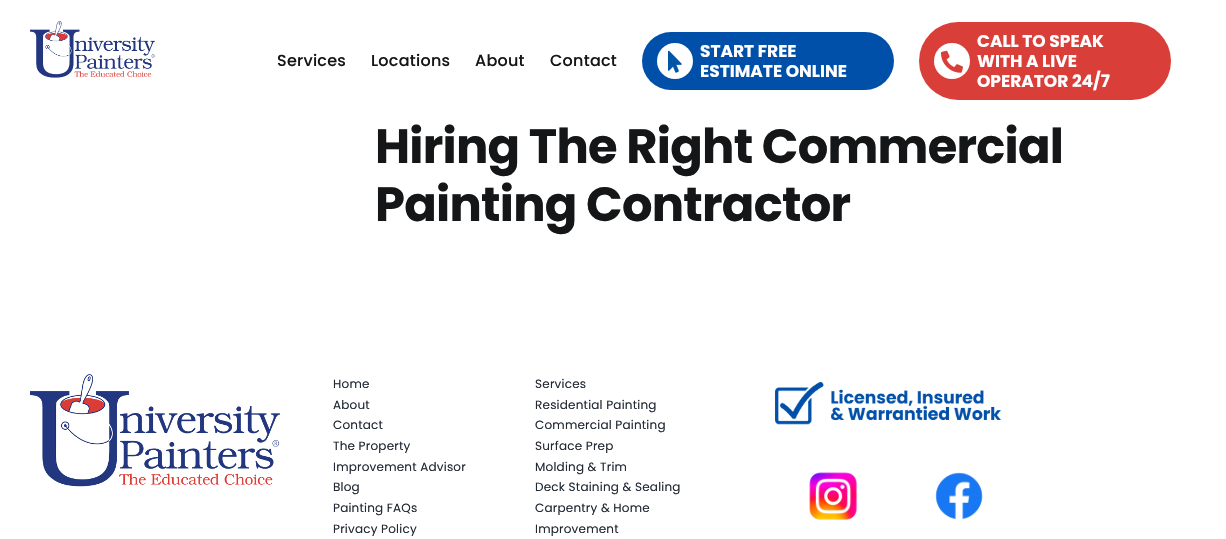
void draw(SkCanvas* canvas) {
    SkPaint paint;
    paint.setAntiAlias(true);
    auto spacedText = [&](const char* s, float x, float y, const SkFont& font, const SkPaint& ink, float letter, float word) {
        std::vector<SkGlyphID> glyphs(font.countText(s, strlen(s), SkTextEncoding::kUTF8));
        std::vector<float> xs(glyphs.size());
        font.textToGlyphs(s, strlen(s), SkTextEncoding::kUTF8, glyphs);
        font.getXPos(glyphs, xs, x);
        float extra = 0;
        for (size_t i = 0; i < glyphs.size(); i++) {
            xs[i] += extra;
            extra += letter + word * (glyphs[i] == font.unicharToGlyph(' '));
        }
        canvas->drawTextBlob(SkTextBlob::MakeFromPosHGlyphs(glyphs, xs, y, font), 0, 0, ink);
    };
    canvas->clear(0xFFFFFFFF);
    canvas->drawImageRect(SkImages::DeferredFromEncodedData(SkData::MakeFromFileName("img1.png")), SkRect::MakeXYWH(30, 21, 125, 57), SkSamplingOptions());
    SkFont font1(fontMgr->matchFamilyStyle("Poppins", SkFontStyle(500, SkFontStyle::kNormal_Width, SkFontStyle::kUpright_Slant)), 16);
    font1.setSubpixel(true);
    paint.setColor(0xFF141617);
    spacedText("Services", 277, 66, font1, paint, 0.25f, 0);
    spacedText("Locations", 371, 66, font1, paint, 0.25f, 0);
    spacedText("About", 475, 66, font1, paint, 0.25f, 0);
    spacedText("Contact", 550, 66, font1, paint, 0.25f, 0);
    paint.setColor(0xFF0050A9);
    canvas->drawRoundRect(SkRect::MakeXYWH(642, 32, 252, 58), 29, 29, paint);
    paint.setColor(0xFFFFFFFF);
    canvas->drawCircle(675, 61, 18, paint);
    canvas->drawImageRect(SkImages::DeferredFromEncodedData(SkData::MakeFromFileName("img2.png")), SkRect::MakeXYWH(668, 50, 14, 23), SkSamplingOptions());
    SkFont font2(fontMgr->matchFamilyStyle("Poppins", SkFontStyle::Bold()), 17);
    font2.setSubpixel(true);
    canvas->drawString("START FREE", 700, 57, font2, paint);
    canvas->drawString("ESTIMATE ONLINE", 700, 77, font2, paint);
    paint.setColor(0xFFDA3E38);
    canvas->drawRoundRect(SkRect::MakeXYWH(919, 22, 252, 78), 39, 39, paint);
    paint.setColor(0xFFFFFFFF);
    canvas->drawCircle(952, 61, 18, paint);
    canvas->drawImageRect(SkImages::DeferredFromEncodedData(SkData::MakeFromFileName("img3.png")), SkRect::MakeXYWH(941, 50, 22, 23), SkSamplingOptions());
    canvas->drawString("CALL TO SPEAK", 977, 47, font2, paint);
    canvas->drawString("WITH A LIVE", 977, 67, font2, paint);
    canvas->drawString("OPERATOR 24/7", 977, 87, font2, paint);
    SkFont font3(fontMgr->matchFamilyStyle("Poppins", SkFontStyle::Bold()), 48);
    font3.setSubpixel(true);
    paint.setColor(0xFF141617);
    spacedText("Hiring The Right Commercial", 375, 163, font3, paint, -0.75f, 0);
    spacedText("Painting Contractor", 375, 221, font3, paint, -0.75f, 0);
    canvas->drawImageRect(SkImages::DeferredFromEncodedData(SkData::MakeFromFileName("img4.png")), SkRect::MakeXYWH(30, 374, 250, 113), SkSamplingOptions());
    SkFont font4(fontMgr->matchFamilyStyle("Poppins", SkFontStyle::Normal()), 12);
    font4.setSubpixel(true);
    paint.setColor(0xFF212934);
    spacedText("Home", 333, 388, font4, paint, 0.2f, 0);
    spacedText("About", 333, 409, font4, paint, 0.2f, 0);
    spacedText("Contact", 333, 429, font4, paint, 0.2f, 0);
    spacedText("The Property", 333, 450, font4, paint, 0.2f, 0);
    spacedText("Improvement Advisor", 333, 471, font4, paint, 0.2f, 0);
    spacedText("Blog", 333, 491, font4, paint, 0.2f, 0);
    spacedText("Painting FAQs", 333, 512, font4, paint, 0.2f, 0);
    spacedText("Privacy Policy", 333, 533, font4, paint, 0.2f, 0);
    spacedText("Services", 535, 388, font4, paint, 0.2f, 0);
    spacedText("Residential Painting", 535, 409, font4, paint, 0.2f, 0);
    spacedText("Commercial Painting", 535, 429, font4, paint, 0.2f, 0);
    spacedText("Surface Prep", 535, 450, font4, paint, 0.2f, 0);
    spacedText("Molding & Trim", 535, 471, font4, paint, 0.2f, 0);
    spacedText("Deck Staining & Sealing", 535, 491, font4, paint, 0.2f, 0);
    spacedText("Carpentry & Home", 535, 512, font4, paint, 0.2f, 0);
    spacedText("Improvement", 535, 533, font4, paint, 0.2f, 0);
    canvas->drawImageRect(SkImages::DeferredFromEncodedData(SkData::MakeFromFileName("img5.png")), SkRect::MakeXYWH(775, 381, 227, 44), SkSamplingOptions());
    canvas->drawImageRect(SkImages::DeferredFromEncodedData(SkData::MakeFromFileName("img6.png")), SkRect::MakeXYWH(809, 472, 48, 48), SkSamplingOptions());
    canvas->drawImageRect(SkImages::DeferredFromEncodedData(SkData::MakeFromFileName("img7.png")), SkRect::MakeXYWH(935, 472, 48, 47), SkSamplingOptions());
}
